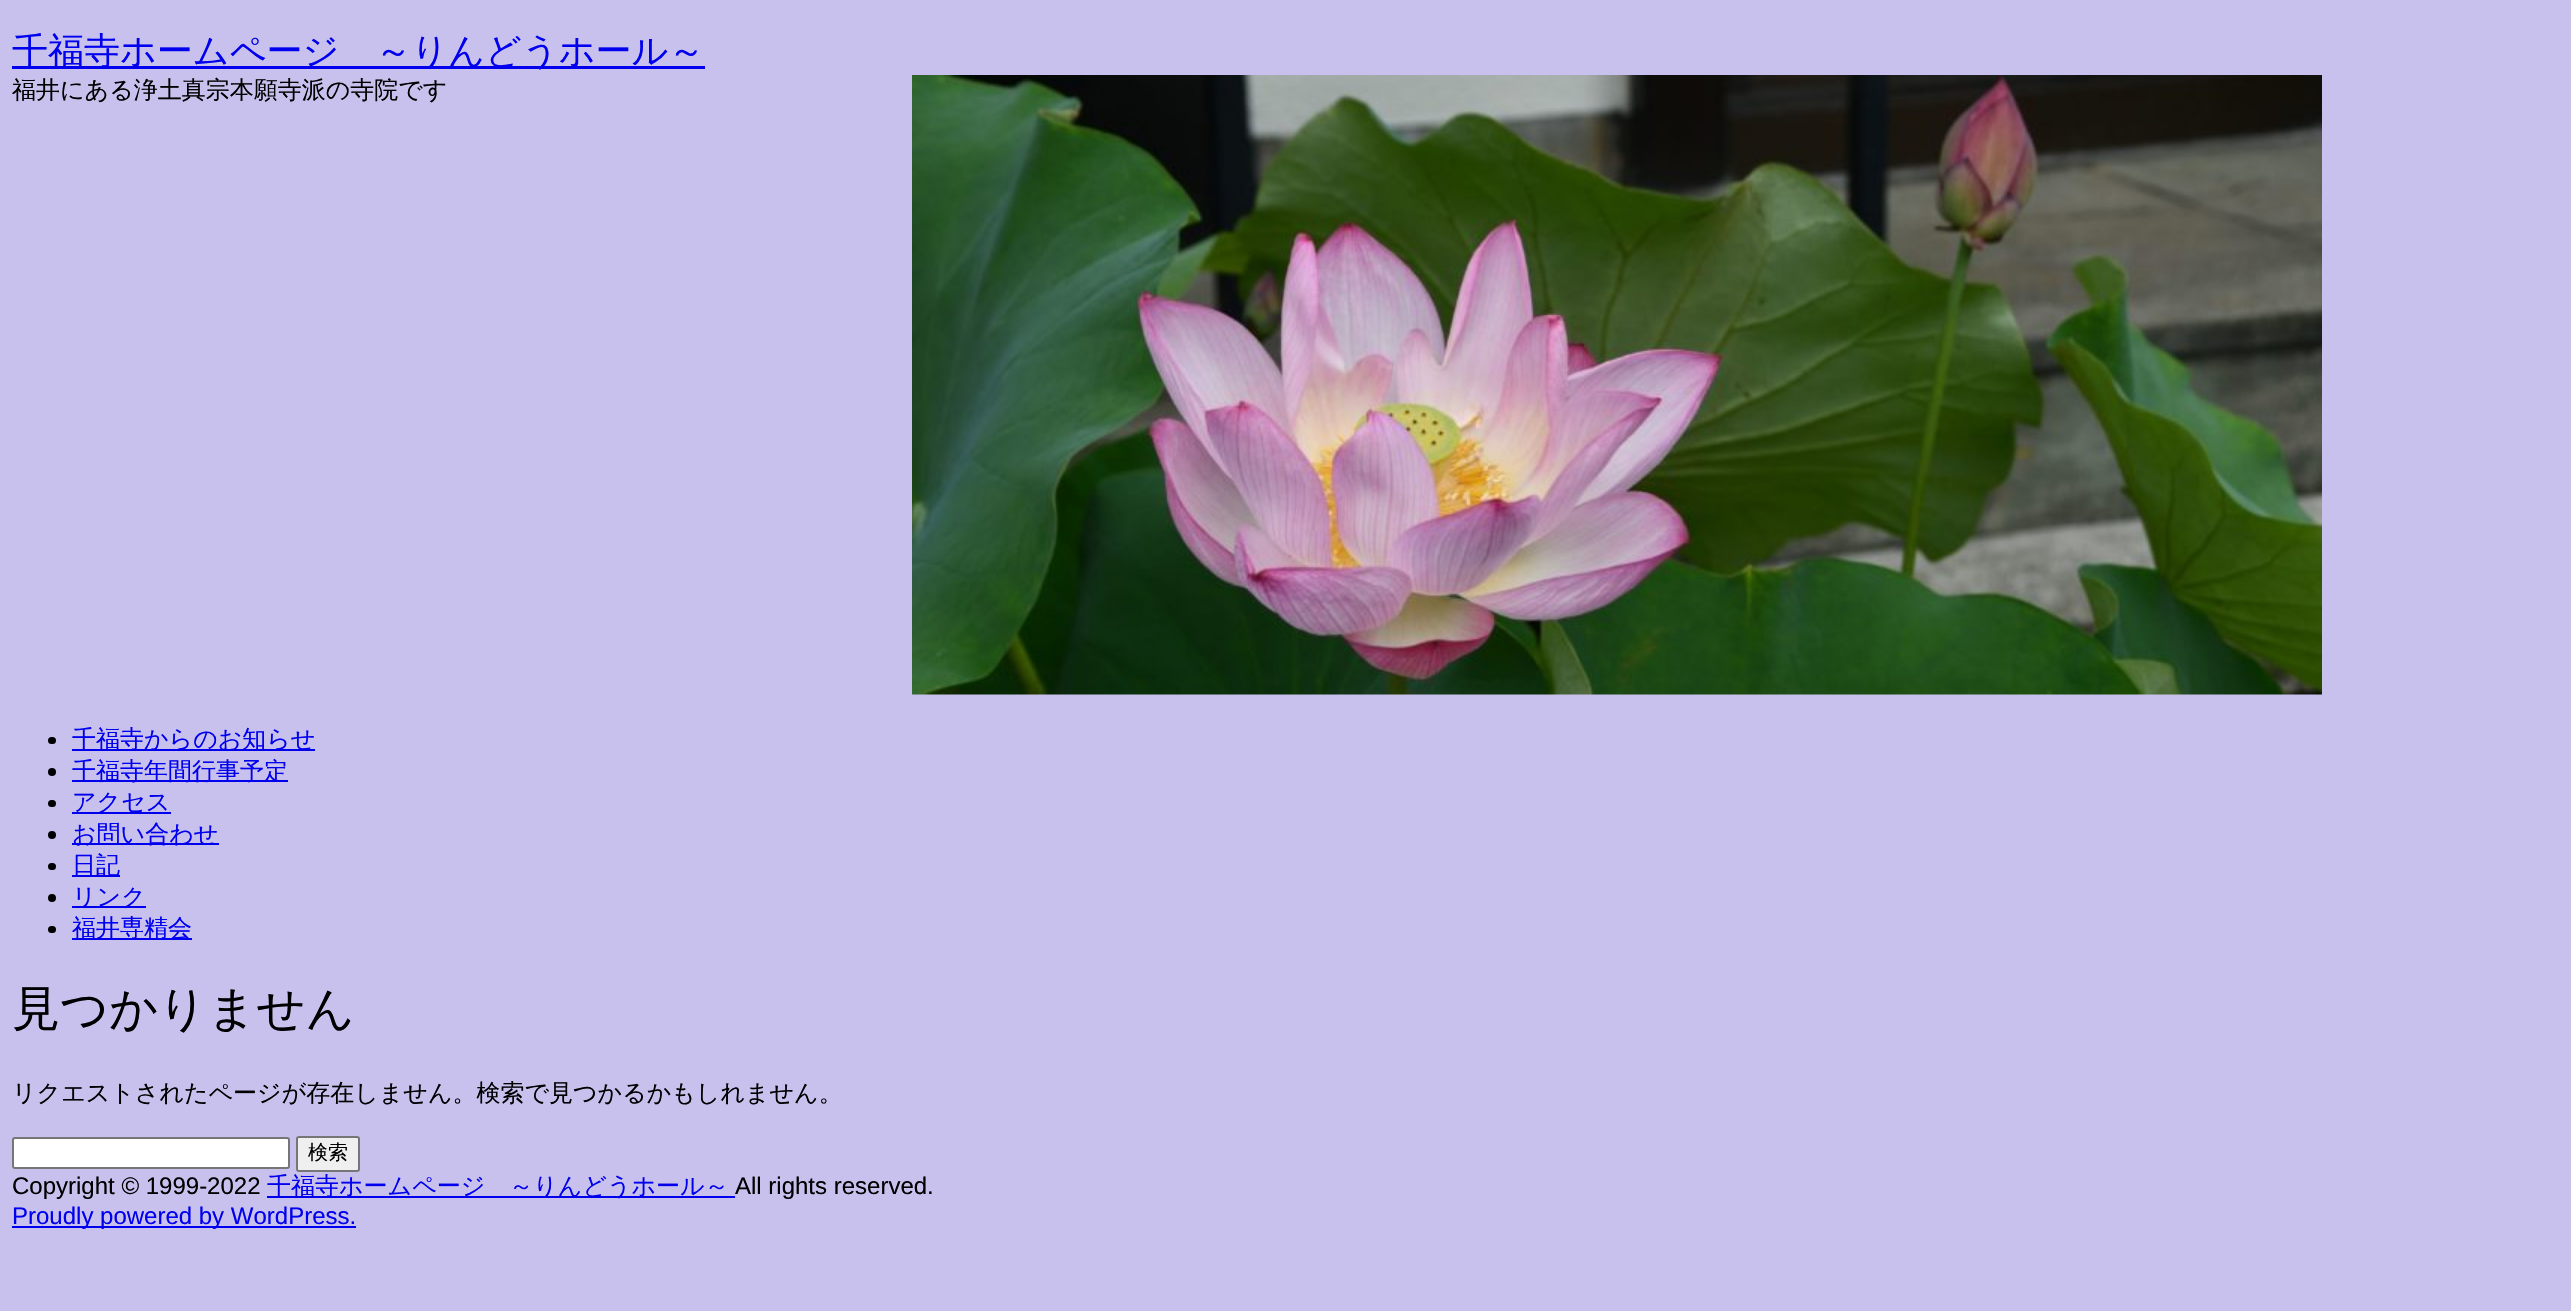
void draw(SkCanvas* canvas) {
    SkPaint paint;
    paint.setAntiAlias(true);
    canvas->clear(0xFFC8C0ED);
    paint.setColor(0xFF0000EE);
    canvas->drawRect(SkRect::MakeXYWH(12, 66, 693, 3), paint);
    SkFont font1(fontMgr->matchFamilyStyle("WenQuanYi Zen Hei", SkFontStyle(500, SkFontStyle::kNormal_Width, SkFontStyle::kUpright_Slant)), 36);
    font1.setSubpixel(true);
    canvas->drawString("千福寺ホームページ　～りんどうホール～", 12, 63, font1, paint);
    SkFont font2(fontMgr->matchFamilyStyle("WenQuanYi Zen Hei", SkFontStyle(500, SkFontStyle::kNormal_Width, SkFontStyle::kUpright_Slant)), 24);
    font2.setSubpixel(true);
    paint.setColor(0xFF000000);
    canvas->drawString("福井にある浄土真宗本願寺派の寺院です", 12, 98, font2, paint);
    canvas->drawImageRect(SkImages::DeferredFromEncodedData(SkData::MakeFromFileName("img1.png")), SkRect::MakeXYWH(912, 75, 1410, 620), SkSamplingOptions());
    canvas->drawRoundRect(SkRect::MakeXYWH(48, 737, 8, 7), 3.5f, 3.5f, paint);
    paint.setColor(0xFF0000EE);
    canvas->drawRect(SkRect::MakeXYWH(72, 749, 243, 2), paint);
    canvas->drawString("千福寺からのお知らせ", 72, 747, font2, paint);
    paint.setColor(0xFF000000);
    canvas->drawCircle(52, 772, 4, paint);
    paint.setColor(0xFF0000EE);
    canvas->drawRect(SkRect::MakeXYWH(72, 780, 216, 2), paint);
    canvas->drawString("千福寺年間行事予定", 72, 779, font2, paint);
    paint.setColor(0xFF000000);
    canvas->drawRoundRect(SkRect::MakeXYWH(48, 800, 8, 7), 3.5f, 3.5f, paint);
    paint.setColor(0xFF0000EE);
    canvas->drawRect(SkRect::MakeXYWH(72, 812, 99, 2), paint);
    canvas->drawString("アクセス", 72, 810, font2, paint);
    paint.setColor(0xFF000000);
    canvas->drawCircle(52, 835, 4, paint);
    paint.setColor(0xFF0000EE);
    canvas->drawRect(SkRect::MakeXYWH(72, 843, 147, 2), paint);
    canvas->drawString("お問い合わせ", 72, 842, font2, paint);
    paint.setColor(0xFF000000);
    canvas->drawRoundRect(SkRect::MakeXYWH(48, 863, 8, 7), 3.5f, 3.5f, paint);
    paint.setColor(0xFF0000EE);
    canvas->drawRect(SkRect::MakeXYWH(72, 875, 48, 2), paint);
    canvas->drawString("日記", 72, 873, font2, paint);
    paint.setColor(0xFF000000);
    canvas->drawCircle(52, 898, 4, paint);
    paint.setColor(0xFF0000EE);
    canvas->drawRect(SkRect::MakeXYWH(72, 906, 74, 2), paint);
    canvas->drawString("リンク", 72, 905, font2, paint);
    paint.setColor(0xFF000000);
    canvas->drawRoundRect(SkRect::MakeXYWH(48, 926, 8, 7), 3.5f, 3.5f, paint);
    paint.setColor(0xFF0000EE);
    canvas->drawRect(SkRect::MakeXYWH(72, 938, 120, 2), paint);
    canvas->drawString("福井専精会", 72, 936, font2, paint);
    SkFont font3(fontMgr->matchFamilyStyle("WenQuanYi Zen Hei", SkFontStyle(500, SkFontStyle::kNormal_Width, SkFontStyle::kUpright_Slant)), 48);
    font3.setSubpixel(true);
    paint.setColor(0xFF000000);
    canvas->drawString("見つかりません", 12, 1025, font3, paint);
    canvas->drawString("リクエストされたページが存在しません。検索で見つかるかもしれません。", 12, 1101, font2, paint);
    paint.setColor(0xFFFFFFFF);
    canvas->drawRoundRect(SkRect::MakeXYWH(13, 1138, 276, 30), 2, 2, paint);
    paint.setStyle(SkPaint::kStroke_Style);
    paint.setStrokeWidth(2);
    paint.setColor(0xFF767676);
    canvas->drawRoundRect(SkRect::MakeXYWH(13, 1138, 276, 30), 2, 2, paint);
    paint.setStyle(SkPaint::kFill_Style);
    paint.setColor(0xFFEFEFEF);
    canvas->drawRoundRect(SkRect::MakeXYWH(297, 1137, 62, 34), 2, 2, paint);
    paint.setStyle(SkPaint::kStroke_Style);
    paint.setColor(0xFF767676);
    canvas->drawRoundRect(SkRect::MakeXYWH(297, 1137, 62, 34), 2, 2, paint);
    SkFont font4(fontMgr->matchFamilyStyle("WenQuanYi Zen Hei", SkFontStyle(500, SkFontStyle::kNormal_Width, SkFontStyle::kUpright_Slant)), 20);
    font4.setSubpixel(true);
    paint.setStyle(SkPaint::kFill_Style);
    paint.setColor(0xFF000000);
    canvas->drawString("検索", 308, 1159, font4, paint);
    SkFont font5(fontMgr->matchFamilyStyle("Liberation Sans", SkFontStyle::Normal()), 24);
    font5.setSubpixel(true);
    canvas->drawString("Copyright © 1999-2022", 12, 1194, font5, paint);
    paint.setColor(0xFF0000EE);
    canvas->drawRect(SkRect::MakeXYWH(267, 1196, 468, 2), paint);
    canvas->drawString("千福寺ホームページ　～りんどうホール～", 267, 1194, font2, paint);
    paint.setColor(0xFF000000);
    canvas->drawString("All rights reserved.", 735, 1194, font5, paint);
    paint.setColor(0xFF0000EE);
    canvas->drawRect(SkRect::MakeXYWH(12, 1226, 344, 2), paint);
    canvas->drawString("Proudly powered by WordPress.", 12, 1224, font5, paint);
}
